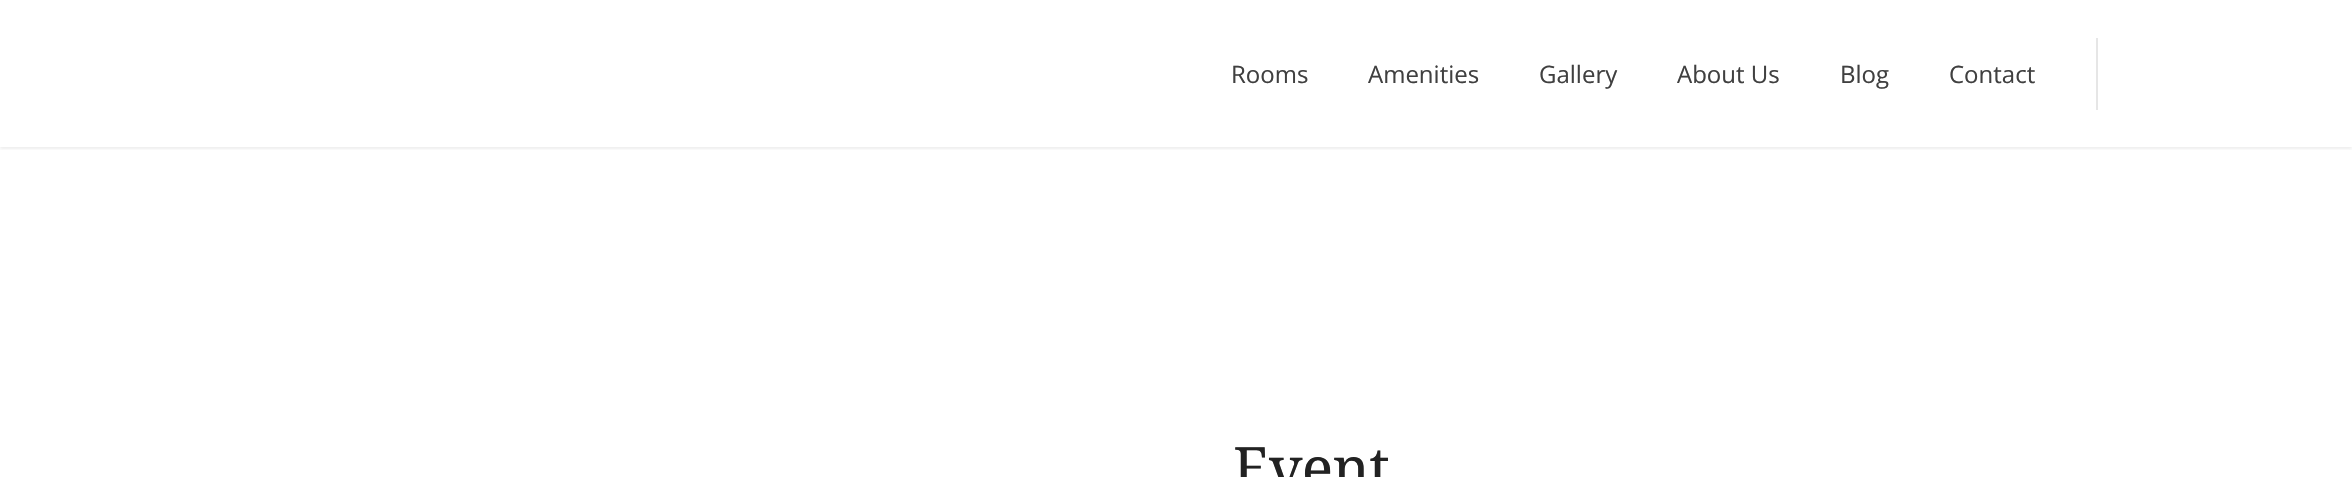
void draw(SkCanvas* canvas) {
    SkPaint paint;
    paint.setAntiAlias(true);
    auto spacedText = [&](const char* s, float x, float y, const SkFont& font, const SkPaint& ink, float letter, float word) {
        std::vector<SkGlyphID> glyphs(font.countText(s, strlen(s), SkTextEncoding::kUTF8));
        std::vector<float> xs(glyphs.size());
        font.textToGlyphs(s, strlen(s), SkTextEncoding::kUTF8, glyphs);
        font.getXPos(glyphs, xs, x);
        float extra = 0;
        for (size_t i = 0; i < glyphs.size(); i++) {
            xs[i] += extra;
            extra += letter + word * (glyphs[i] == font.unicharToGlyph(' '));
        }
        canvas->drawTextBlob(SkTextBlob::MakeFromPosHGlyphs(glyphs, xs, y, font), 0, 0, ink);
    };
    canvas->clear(0xFFFFFFFF);
    canvas->save();
    canvas->clipRect(SkRect::MakeXYWH(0, 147, 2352, 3));
    paint.setColor(0x1A505050);
    paint.setMaskFilter(SkMaskFilter::MakeBlur(kNormal_SkBlurStyle, 1.5f));
    canvas->drawRect(SkRect::MakeXYWH(0, 2, 2352, 147), paint);
    paint.setMaskFilter(nullptr);
    canvas->restore();
    paint.setColor(0xFFE6E6E6);
    canvas->drawRect(SkRect::MakeXYWH(2096, 38, 2, 72), paint);
    SkFont font1(fontMgr->matchFamilyStyle("Open Sans", SkFontStyle::Normal()), 24);
    font1.setSubpixel(true);
    paint.setColor(0xFF404040);
    canvas->drawString("Rooms", 1231, 83, font1, paint);
    canvas->drawString("Amenities", 1368, 83, font1, paint);
    canvas->drawString("Gallery", 1539, 83, font1, paint);
    canvas->drawString("About Us", 1677, 83, font1, paint);
    canvas->drawString("Blog", 1840, 83, font1, paint);
    canvas->drawString("Contact", 1949, 83, font1, paint);
    SkFont font2(fontMgr->matchFamilyStyle("Noto Serif", SkFontStyle::Normal()), 58.5f);
    font2.setSubpixel(true);
    paint.setColor(0xFF222222);
    spacedText("Event", 1233, 489, font2, paint, -0.75f, 0);
}
